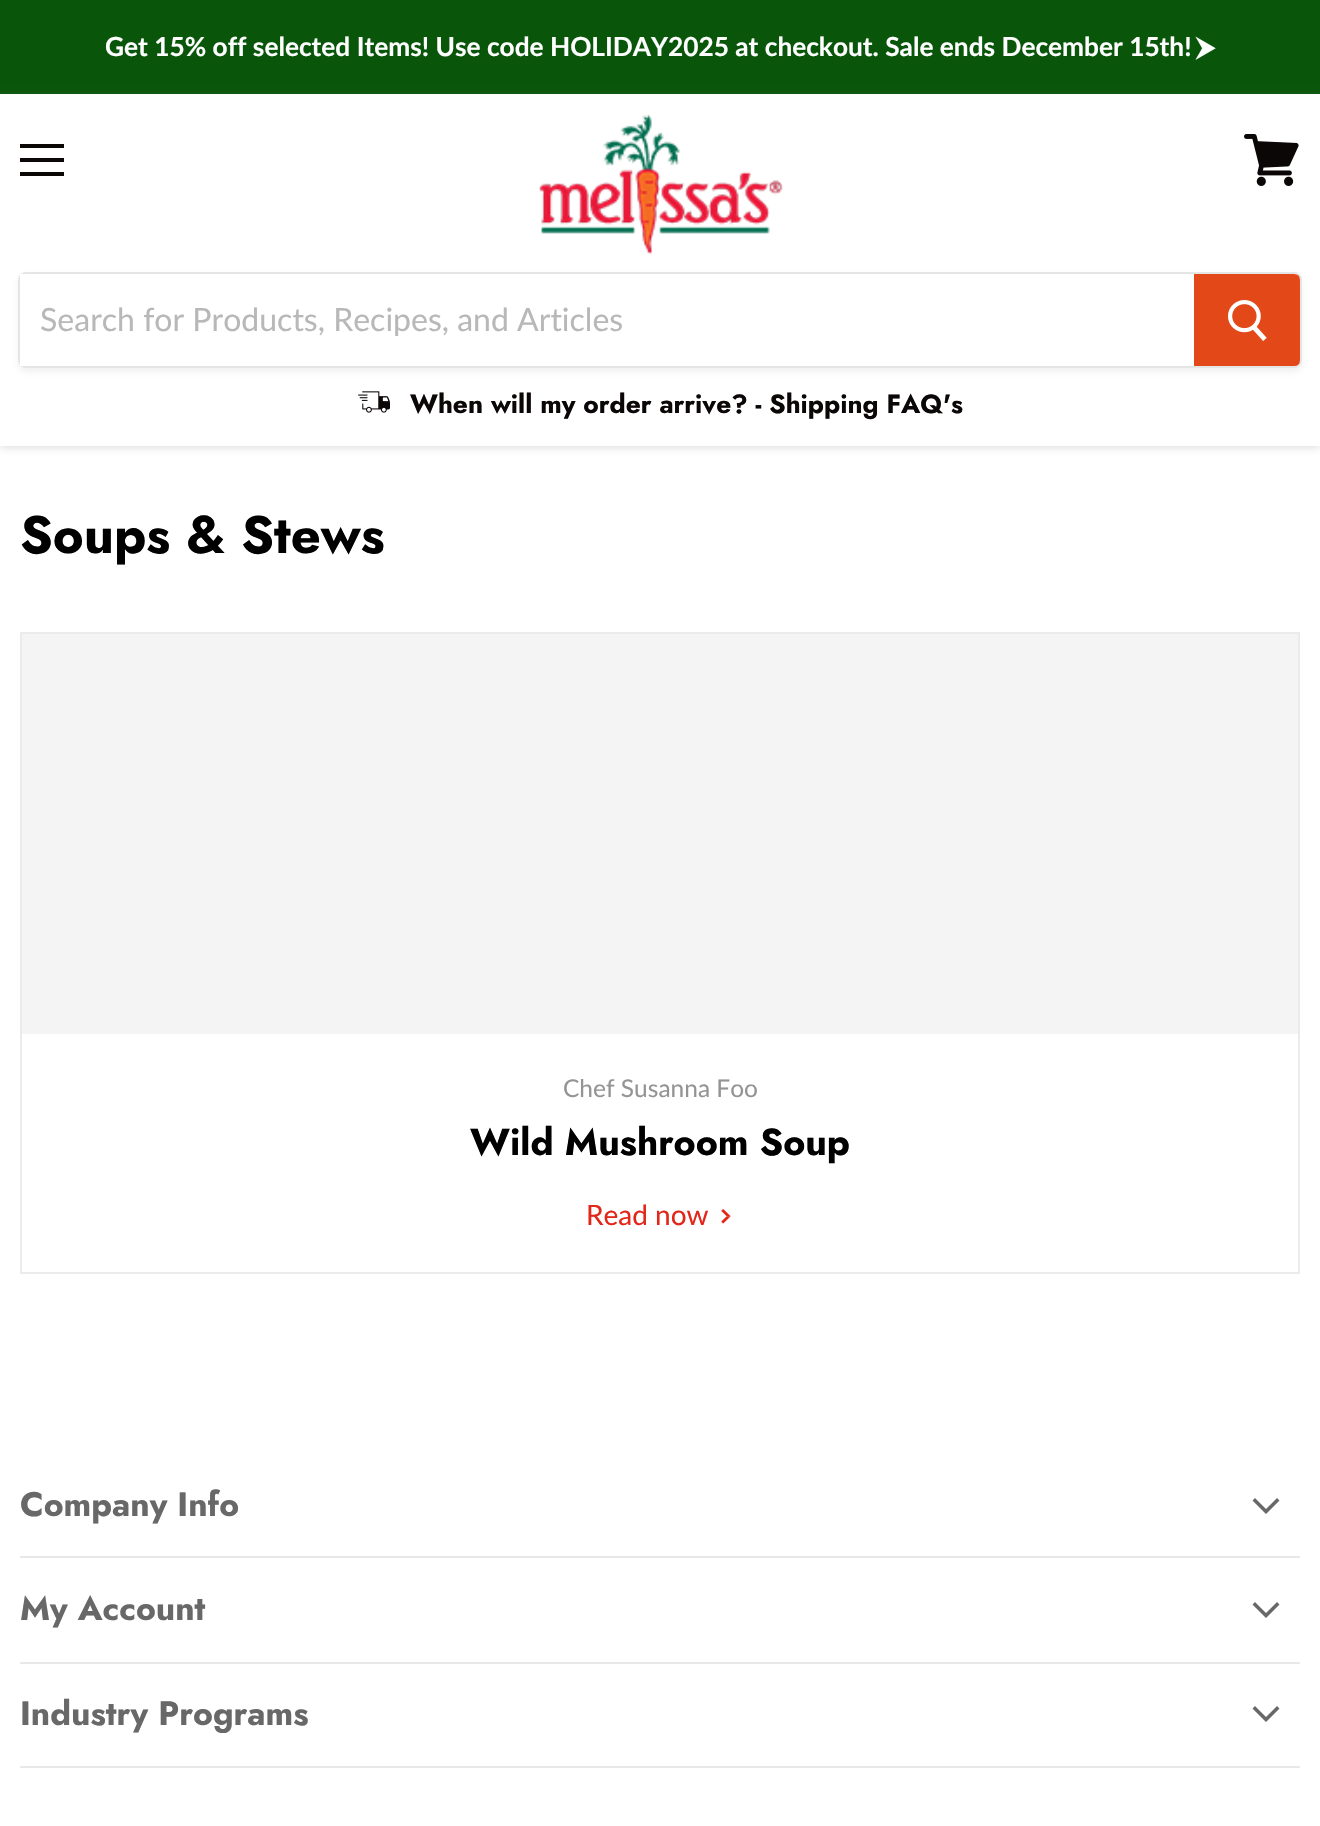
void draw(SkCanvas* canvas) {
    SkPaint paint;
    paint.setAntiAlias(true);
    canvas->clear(0xFFFFFFFF);
    paint.setColor(0xFF09560A);
    canvas->drawRect(SkRect::MakeXYWH(0, 0, 1320, 94), paint);
    SkFont font1(fontMgr->matchFamilyStyle("Lato", SkFontStyle::Bold()), 26.25f);
    font1.setSubpixel(true);
    paint.setColor(0xFFFFFFFF);
    canvas->drawString("Get 15% off selected Items! Use code HOLIDAY2025 at checkout. Sale ends December 15th!", 105, 56, font1, paint);
    SkFont font2(fontMgr->matchFamilyStyle("FreeSans", SkFontStyle::Bold()), 26.25f);
    font2.setSubpixel(true);
    canvas->drawString("⮞", 1196, 56, font2, paint);
    canvas->save();
    canvas->clipPath(SkPathBuilder(SkPathFillType::kEvenOdd).moveTo(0, 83).lineTo(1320, 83).lineTo(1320, 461).lineTo(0, 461).close().moveTo(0, 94).lineTo(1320, 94).lineTo(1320, 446).lineTo(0, 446).close().detach(), true);
    paint.setColor(0x407F7F7F);
    paint.setMaskFilter(SkMaskFilter::MakeBlur(kNormal_SkBlurStyle, 4));
    canvas->drawRect(SkRect::MakeXYWH(0, 96, 1320, 352), paint);
    paint.setMaskFilter(nullptr);
    canvas->restore();
    paint.setColor(0xFF0C0707);
    canvas->drawRect(SkRect::MakeXYWH(20, 144, 44, 4), paint);
    canvas->drawRect(SkRect::MakeXYWH(20, 158, 44, 4), paint);
    canvas->drawRect(SkRect::MakeXYWH(20, 172, 44, 4), paint);
    canvas->drawImageRect(SkImages::DeferredFromEncodedData(SkData::MakeFromFileName("img1.png")), SkRect::MakeXYWH(1244, 134, 55, 52), SkSamplingOptions());
    canvas->drawImageRect(SkImages::DeferredFromEncodedData(SkData::MakeFromFileName("img2.png")), SkRect::MakeXYWH(539, 114, 244, 140), SkSamplingOptions());
    canvas->save();
    canvas->clipPath(SkPathBuilder(SkPathFillType::kEvenOdd).moveTo(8, 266).lineTo(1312, 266).lineTo(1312, 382).lineTo(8, 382).close().moveTo(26, 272).lineTo(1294, 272).cubicTo(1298.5f, 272, 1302, 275.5f, 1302, 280).lineTo(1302, 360).cubicTo(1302, 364.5f, 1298.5f, 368, 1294, 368).lineTo(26, 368).cubicTo(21.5f, 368, 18, 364.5f, 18, 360).lineTo(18, 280).cubicTo(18, 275.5f, 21.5f, 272, 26, 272).close().detach(), true);
    paint.setColor(0x1C7F7F7F);
    paint.setMaskFilter(SkMaskFilter::MakeBlur(kNormal_SkBlurStyle, 3));
    canvas->drawRoundRect(SkRect::MakeXYWH(18, 276, 1284, 96), 8, 8, paint);
    paint.setMaskFilter(nullptr);
    canvas->restore();
    paint.setStyle(SkPaint::kStroke_Style);
    paint.setStrokeWidth(2);
    paint.setColor(0x337F7F7F);
    canvas->drawRoundRect(SkRect::MakeXYWH(19, 273, 1282, 94), 7, 7, paint);
    paint.setStyle(SkPaint::kFill_Style);
    paint.setColor(0xFFFFFFFF);
    canvas->drawRect(SkRect::MakeXYWH(20, 274, 5, 92), paint);
    canvas->save();
    canvas->clipRect(SkRect::MakeXYWH(40, 298, 1134, 38));
    SkFont font3(fontMgr->matchFamilyStyle("Lato", SkFontStyle::Normal()), 32);
    font3.setSubpixel(true);
    paint.setColor(0xFFB8B8B8);
    canvas->drawString("Search for Products, Recipes, and Articles", 40, 331, font3, paint);
    canvas->restore();
    paint.setColor(0xFFE34819);
    canvas->drawPath(SkPathBuilder().moveTo(1195, 275).lineTo(1294, 275).cubicTo(1297, 275, 1299, 277, 1299, 280).lineTo(1299, 360).cubicTo(1299, 363, 1297, 365, 1294, 365).lineTo(1195, 365).close().detach(), paint);
    paint.setStyle(SkPaint::kStroke_Style);
    canvas->drawPath(SkPathBuilder().moveTo(1195, 275).lineTo(1294, 275).cubicTo(1297, 275, 1299, 277, 1299, 280).lineTo(1299, 360).cubicTo(1299, 363, 1297, 365, 1294, 365).lineTo(1195, 365).close().detach(), paint);
    canvas->drawImageRect(SkImages::DeferredFromEncodedData(SkData::MakeFromFileName("img3.png")), SkRect::MakeXYWH(1228, 300, 39, 41), SkSamplingOptions());
    canvas->drawImageRect(SkImages::DeferredFromEncodedData(SkData::MakeFromFileName("img4.png")), SkRect::MakeXYWH(358, 391, 32, 22), SkSamplingOptions());
    SkFont font4(fontMgr->matchFamilyStyle("Jost", SkFontStyle::Bold()), 26.25f);
    font4.setSubpixel(true);
    paint.setStyle(SkPaint::kFill_Style);
    paint.setColor(0xFF0C0707);
    canvas->drawString("When will my order arrive? - Shipping FAQ's", 410, 413, font4, paint);
    SkFont font5(fontMgr->matchFamilyStyle("Jost", SkFontStyle::Bold()), 52.5f);
    font5.setSubpixel(true);
    paint.setColor(0xFF000000);
    canvas->drawString("Soups & Stews", 20, 553, font5, paint);
    paint.setStyle(SkPaint::kStroke_Style);
    paint.setColor(0xFFEBEBEB);
    canvas->drawRect(SkRect::MakeXYWH(21, 633, 1278, 640), paint);
    paint.setStyle(SkPaint::kFill_Style);
    paint.setColor(0xFFF4F4F4);
    canvas->drawRect(SkRect::MakeXYWH(22, 634, 1276, 400), paint);
    SkFont font6(fontMgr->matchFamilyStyle("Lato", SkFontStyle::Normal()), 24.5f);
    font6.setSubpixel(true);
    paint.setColor(0xFF949494);
    canvas->drawString("Chef Susanna Foo", 563, 1097, font6, paint);
    SkFont font7(fontMgr->matchFamilyStyle("Jost", SkFontStyle::Bold()), 37.5f);
    font7.setSubpixel(true);
    paint.setColor(0xFF000000);
    canvas->drawString("Wild Mushroom Soup", 470, 1155, font7, paint);
    SkFont font8(fontMgr->matchFamilyStyle("Lato", SkFontStyle::Normal()), 28);
    font8.setSubpixel(true);
    paint.setColor(0xFFE32619);
    canvas->drawString("Read now", 586, 1225, font8, paint);
    canvas->drawImageRect(SkImages::DeferredFromEncodedData(SkData::MakeFromFileName("img5.png")), SkRect::MakeXYWH(721, 1209, 10, 15), SkSamplingOptions());
    paint.setColor(0xFFE8E8E8);
    canvas->drawRect(SkRect::MakeXYWH(20, 1556, 1280, 2), paint);
    SkFont font9(fontMgr->matchFamilyStyle("Jost", SkFontStyle::Bold()), 33.75f);
    font9.setSubpixel(true);
    paint.setColor(0xFF686868);
    canvas->drawString("Company Info", 20, 1516, font9, paint);
    canvas->drawPath(SkPathBuilder(SkPathFillType::kEvenOdd).moveTo(1266, 1514).lineTo(1279.5f, 1500.5f).lineTo(1277, 1498).lineTo(1266, 1509).close().moveTo(1266, 1509).lineTo(1255, 1498).lineTo(1252.5f, 1500.5f).lineTo(1266, 1514).close().detach(), paint);
    paint.setColor(0xFFE8E8E8);
    canvas->drawRect(SkRect::MakeXYWH(20, 1662, 1280, 2), paint);
    paint.setColor(0xFF686868);
    canvas->drawString("My Account", 20, 1620, font9, paint);
    canvas->drawPath(SkPathBuilder(SkPathFillType::kEvenOdd).moveTo(1266, 1618).lineTo(1279.5f, 1604.5f).lineTo(1277, 1602).lineTo(1266, 1613).close().moveTo(1266, 1613).lineTo(1255, 1602).lineTo(1252.5f, 1604.5f).lineTo(1266, 1618).close().detach(), paint);
    paint.setColor(0xFFE8E8E8);
    canvas->drawRect(SkRect::MakeXYWH(20, 1766, 1280, 2), paint);
    paint.setColor(0xFF686868);
    canvas->drawString("Industry Programs", 20, 1725, font9, paint);
    canvas->drawPath(SkPathBuilder(SkPathFillType::kEvenOdd).moveTo(1266, 1722).lineTo(1279.5f, 1708.5f).lineTo(1277, 1706).lineTo(1266, 1717).close().moveTo(1266, 1717).lineTo(1255, 1706).lineTo(1252.5f, 1708.5f).lineTo(1266, 1722).close().detach(), paint);
}
